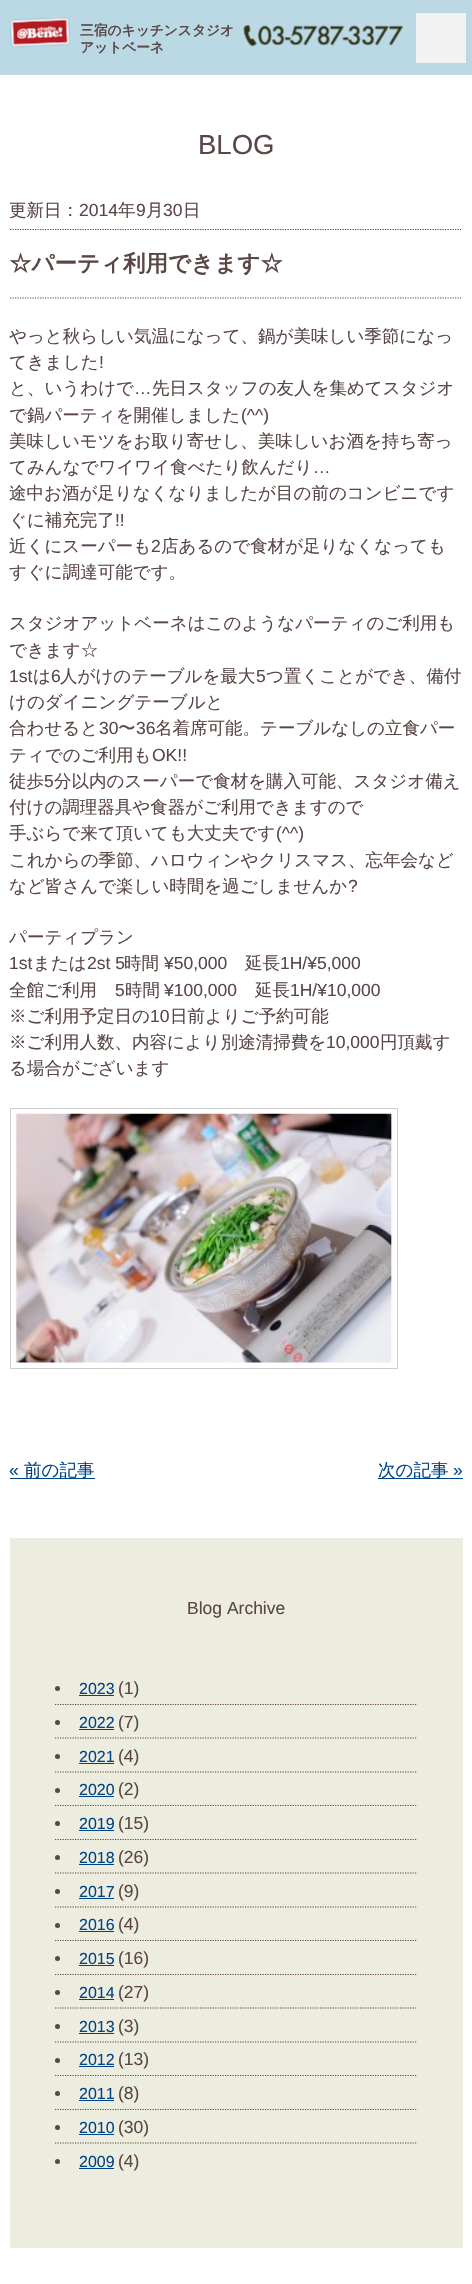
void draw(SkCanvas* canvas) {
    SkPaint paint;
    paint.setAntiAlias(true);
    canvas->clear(0xFFFFFFFF);
    paint.setColor(0xFFBBD8E5);
    canvas->drawRect(SkRect::MakeXYWH(0, 0, 472, 75), paint);
    canvas->drawImageRect(SkImages::DeferredFromEncodedData(SkData::MakeFromFileName("img1.png")), SkRect::MakeXYWH(10, 17, 60, 31), SkSamplingOptions());
    SkFont font1(fontMgr->matchFamilyStyle("WenQuanYi Zen Hei", SkFontStyle::Bold()), 13.75f);
    font1.setSubpixel(true);
    paint.setColor(0xFF5B4646);
    canvas->drawString("三宿のキッチンスタジオ", 80, 35, font1, paint);
    canvas->drawString("アットベーネ", 80, 52, font1, paint);
    canvas->drawImageRect(SkImages::DeferredFromEncodedData(SkData::MakeFromFileName("img2.png")), SkRect::MakeXYWH(243, 24, 161, 23), SkSamplingOptions());
    paint.setColor(0xFFF2F2F2);
    canvas->drawRect(SkRect::MakeXYWH(416, 13, 50, 50), paint);
    SkFont font2(fontMgr->matchFamilyStyle("Liberation Sans", SkFontStyle::Normal()), 27.5f);
    font2.setSubpixel(true);
    paint.setColor(0xFF5B4646);
    canvas->drawString("BLOG", 198, 154, font2, paint);
    SkFont font3(fontMgr->matchFamilyStyle("WenQuanYi Zen Hei", SkFontStyle(500, SkFontStyle::kNormal_Width, SkFontStyle::kUpright_Slant)), 17.5f);
    font3.setSubpixel(true);
    canvas->drawString("更新日：", 9, 216, font3, paint);
    SkFont font4(fontMgr->matchFamilyStyle("Liberation Sans", SkFontStyle::Normal()), 17.5f);
    font4.setSubpixel(true);
    canvas->drawString("2014", 79, 216, font4, paint);
    canvas->drawString("年", 118, 216, font3, paint);
    canvas->drawString("9", 136, 216, font4, paint);
    canvas->drawString("月", 146, 216, font3, paint);
    canvas->drawString("30", 163, 216, font4, paint);
    canvas->drawString("日", 183, 216, font3, paint);
    paint.setStyle(SkPaint::kStroke_Style);
    paint.setStrokeWidth(1.2f);
    paint.setPathEffect(SkDashPathEffect::Make({{1.25f, 1.25f}}, 0));
    canvas->drawPath(SkPathBuilder().moveTo(10, 229.5f).lineTo(462.5f, 229.5f).detach(), paint);
    paint.setPathEffect(nullptr);
    paint.setPathEffect(SkDashPathEffect::Make({{1.25f, 1.25f}}, 0));
    canvas->drawPath(SkPathBuilder().moveTo(10, 298).lineTo(462.5f, 298).detach(), paint);
    paint.setPathEffect(nullptr);
    SkFont font5(fontMgr->matchFamilyStyle("WenQuanYi Zen Hei", SkFontStyle::Bold()), 22.5f);
    font5.setSubpixel(true);
    paint.setStyle(SkPaint::kFill_Style);
    canvas->drawString("☆パーティ利用できます☆", 9, 271, font5, paint);
    canvas->drawString("やっと秋らしい気温になって、鍋が美味しい季節になっ", 9, 342, font3, paint);
    canvas->drawString("てきました", 9, 368, font3, paint);
    canvas->drawString("!", 99, 368, font4, paint);
    canvas->drawString("と、いうわけで", 9, 394, font3, paint);
    canvas->drawString("…", 134, 394, font4, paint);
    canvas->drawString("先日スタッフの友人を集めてスタジオ", 152, 394, font3, paint);
    canvas->drawString("で鍋パーティを開催しました", 9, 421, font3, paint);
    canvas->drawString("(^^)", 241, 421, font4, paint);
    canvas->drawString("美味しいモツをお取り寄せし、美味しいお酒を持ち寄っ", 9, 447, font3, paint);
    canvas->drawString("てみんなでワイワイ食べたり飲んだり", 9, 473, font3, paint);
    canvas->drawString("…", 313, 473, font4, paint);
    canvas->drawString("途中お酒が足りなくなりましたが目の前のコンビニです", 9, 499, font3, paint);
    canvas->drawString("ぐに補充完了", 9, 526, font3, paint);
    canvas->drawString("!!", 115, 526, font4, paint);
    canvas->drawString("近くにスーパーも", 9, 552, font3, paint);
    canvas->drawString("2", 151, 552, font4, paint);
    canvas->drawString("店あるので食材が足りなくなっても", 161, 552, font3, paint);
    canvas->drawString("すぐに調達可能です。", 9, 578, font3, paint);
    canvas->drawString("スタジオアットベーネはこのようなパーティのご利用も", 9, 629, font3, paint);
    canvas->drawString("できます☆", 9, 656, font3, paint);
    canvas->drawString("1st", 9, 682, font4, paint);
    canvas->drawString("は", 33, 682, font3, paint);
    canvas->drawString("6", 51, 682, font4, paint);
    canvas->drawString("人がけのテーブルを最大", 60, 682, font3, paint);
    canvas->drawString("5", 256, 682, font4, paint);
    canvas->drawString("つ置くことができ、備付", 266, 682, font3, paint);
    canvas->drawString("けのダイニングテーブルと", 9, 708, font3, paint);
    canvas->drawString("合わせると", 9, 734, font3, paint);
    canvas->drawString("30", 99, 734, font4, paint);
    canvas->drawString("〜", 118, 734, font3, paint);
    canvas->drawString("36", 136, 734, font4, paint);
    canvas->drawString("名着席可能。テーブルなしの立食パー", 155, 734, font3, paint);
    canvas->drawString("ティでのご利用も", 9, 761, font3, paint);
    canvas->drawString("OK!!", 152, 761, font4, paint);
    canvas->drawString("徒歩", 9, 787, font3, paint);
    canvas->drawString("5", 44, 787, font4, paint);
    canvas->drawString("分以内のスーパーで食材を購入可能、スタジオ備え", 54, 787, font3, paint);
    canvas->drawString("付けの調理器具や食器がご利用できますので", 9, 813, font3, paint);
    canvas->drawString("手ぶらで来て頂いても大丈夫です", 9, 839, font3, paint);
    canvas->drawString("(^^)", 276, 839, font4, paint);
    canvas->drawString("これからの季節、ハロウィンやクリスマス、忘年会など", 9, 866, font3, paint);
    canvas->drawString("など皆さんで楽しい時間を過ごしませんか", 9, 892, font3, paint);
    canvas->drawString("?", 348, 892, font4, paint);
    canvas->drawString("パーティプラン", 9, 943, font3, paint);
    canvas->drawString("1st", 9, 969, font4, paint);
    canvas->drawString("または", 33, 969, font3, paint);
    canvas->drawString("2st 5", 87, 969, font4, paint);
    canvas->drawString("時間", 124, 969, font3, paint);
    canvas->drawString("¥50,000", 164, 969, font4, paint);
    canvas->drawString("延長", 245, 969, font3, paint);
    canvas->drawString("1H/¥5,000", 280, 969, font4, paint);
    canvas->drawString("全館ご利用", 9, 996, font3, paint);
    canvas->drawString("5", 115, 996, font4, paint);
    canvas->drawString("時間", 125, 996, font3, paint);
    canvas->drawString("¥100,000", 164, 996, font4, paint);
    canvas->drawString("延長", 255, 996, font3, paint);
    canvas->drawString("1H/¥10,000", 290, 996, font4, paint);
    canvas->drawString("※ご利用予定日の", 9, 1022, font3, paint);
    canvas->drawString("10", 150, 1022, font4, paint);
    canvas->drawString("日前よりご予約可能", 170, 1022, font3, paint);
    canvas->drawString("※ご利用人数、内容により別途清掃費を", 9, 1048, font3, paint);
    canvas->drawString("10,000", 326, 1048, font4, paint);
    canvas->drawString("円頂戴す", 380, 1048, font3, paint);
    canvas->drawString("る場合がございます", 9, 1074, font3, paint);
    paint.setStyle(SkPaint::kStroke_Style);
    paint.setStrokeWidth(1);
    paint.setColor(0xFFCCCCCC);
    canvas->drawRect(SkRect::MakeXYWH(10.5f, 1108.5f, 387, 260), paint);
    canvas->drawImageRect(SkImages::DeferredFromEncodedData(SkData::MakeFromFileName("img3.png")), SkRect::MakeXYWH(16, 1113, 376, 250), SkSamplingOptions());
    paint.setStyle(SkPaint::kFill_Style);
    paint.setColor(0xFF004488);
    canvas->drawString("«", 9, 1476, font4, paint);
    canvas->drawRect(SkRect::MakeXYWH(10, 1478, 85, 1), paint);
    canvas->drawString("前の記事", 24, 1476, font3, paint);
    canvas->drawRect(SkRect::MakeXYWH(378, 1478, 85, 1), paint);
    canvas->drawString("次の記事", 378, 1476, font3, paint);
    canvas->drawString("»", 453, 1476, font4, paint);
    paint.setColor(0xFFECECDF);
    canvas->drawRect(SkRect::MakeXYWH(10, 1538, 453, 710), paint);
    paint.setColor(0xFF5B4646);
    canvas->drawString("Blog Archive", 187, 1614, font4, paint);
    paint.setStyle(SkPaint::kStroke_Style);
    paint.setStrokeWidth(1.2f);
    paint.setColor(0xFF664D30);
    paint.setPathEffect(SkDashPathEffect::Make({{1.25f, 1.25f}}, 0));
    canvas->drawPath(SkPathBuilder().moveTo(55, 1704.5f).lineTo(417.5f, 1704.5f).detach(), paint);
    paint.setPathEffect(nullptr);
    paint.setStyle(SkPaint::kFill_Style);
    paint.setColor(0xFF5B4646);
    canvas->drawCircle(57.5f, 1688.5f, 2.5f, paint);
    SkFont font6(fontMgr->matchFamilyStyle("Liberation Sans", SkFontStyle::Normal()), 16);
    font6.setSubpixel(true);
    paint.setColor(0xFF004488);
    canvas->drawString("2023", 79, 1694, font6, paint);
    canvas->drawRect(SkRect::MakeXYWH(79, 1695, 35, 1), paint);
    paint.setColor(0xFF5B4646);
    canvas->drawString("(1)", 118, 1694, font4, paint);
    paint.setStyle(SkPaint::kStroke_Style);
    paint.setColor(0xFF664D30);
    paint.setPathEffect(SkDashPathEffect::Make({{1.25f, 1.25f}}, 0));
    canvas->drawPath(SkPathBuilder().moveTo(55, 1738).lineTo(417.5f, 1738).detach(), paint);
    paint.setPathEffect(nullptr);
    paint.setStyle(SkPaint::kFill_Style);
    paint.setColor(0xFF5B4646);
    canvas->drawCircle(57.5f, 1722.5f, 2.5f, paint);
    paint.setColor(0xFF004488);
    canvas->drawString("2022", 79, 1728, font6, paint);
    canvas->drawRect(SkRect::MakeXYWH(79, 1729, 35, 1), paint);
    paint.setColor(0xFF5B4646);
    canvas->drawString("(7)", 118, 1728, font4, paint);
    paint.setStyle(SkPaint::kStroke_Style);
    paint.setColor(0xFF664D30);
    paint.setPathEffect(SkDashPathEffect::Make({{1.25f, 1.25f}}, 0));
    canvas->drawPath(SkPathBuilder().moveTo(55, 1772).lineTo(417.5f, 1772).detach(), paint);
    paint.setPathEffect(nullptr);
    paint.setStyle(SkPaint::kFill_Style);
    paint.setColor(0xFF5B4646);
    canvas->drawCircle(57.5f, 1756.5f, 2.5f, paint);
    paint.setColor(0xFF004488);
    canvas->drawString("2021", 79, 1762, font6, paint);
    canvas->drawRect(SkRect::MakeXYWH(79, 1763, 35, 1), paint);
    paint.setColor(0xFF5B4646);
    canvas->drawString("(4)", 118, 1762, font4, paint);
    paint.setStyle(SkPaint::kStroke_Style);
    paint.setColor(0xFF664D30);
    paint.setPathEffect(SkDashPathEffect::Make({{1.25f, 1.25f}}, 0));
    canvas->drawPath(SkPathBuilder().moveTo(55, 1805.5f).lineTo(417.5f, 1805.5f).detach(), paint);
    paint.setPathEffect(nullptr);
    paint.setStyle(SkPaint::kFill_Style);
    paint.setColor(0xFF5B4646);
    canvas->drawCircle(57.5f, 1790.5f, 2.5f, paint);
    paint.setColor(0xFF004488);
    canvas->drawString("2020", 79, 1795, font6, paint);
    canvas->drawRect(SkRect::MakeXYWH(79, 1796, 35, 1), paint);
    paint.setColor(0xFF5B4646);
    canvas->drawString("(2)", 118, 1795, font4, paint);
    paint.setStyle(SkPaint::kStroke_Style);
    paint.setColor(0xFF664D30);
    paint.setPathEffect(SkDashPathEffect::Make({{1.25f, 1.25f}}, 0));
    canvas->drawPath(SkPathBuilder().moveTo(55, 1839.5f).lineTo(417.5f, 1839.5f).detach(), paint);
    paint.setPathEffect(nullptr);
    paint.setStyle(SkPaint::kFill_Style);
    paint.setColor(0xFF5B4646);
    canvas->drawCircle(57.5f, 1823.5f, 2.5f, paint);
    paint.setColor(0xFF004488);
    canvas->drawString("2019", 79, 1829, font6, paint);
    canvas->drawRect(SkRect::MakeXYWH(79, 1830, 35, 1), paint);
    paint.setColor(0xFF5B4646);
    canvas->drawString("(15)", 118, 1829, font4, paint);
    paint.setStyle(SkPaint::kStroke_Style);
    paint.setColor(0xFF664D30);
    paint.setPathEffect(SkDashPathEffect::Make({{1.25f, 1.25f}}, 0));
    canvas->drawPath(SkPathBuilder().moveTo(55, 1873).lineTo(417.5f, 1873).detach(), paint);
    paint.setPathEffect(nullptr);
    paint.setStyle(SkPaint::kFill_Style);
    paint.setColor(0xFF5B4646);
    canvas->drawCircle(57.5f, 1857.5f, 2.5f, paint);
    paint.setColor(0xFF004488);
    canvas->drawString("2018", 79, 1863, font6, paint);
    canvas->drawRect(SkRect::MakeXYWH(79, 1864, 35, 1), paint);
    paint.setColor(0xFF5B4646);
    canvas->drawString("(26)", 118, 1863, font4, paint);
    paint.setStyle(SkPaint::kStroke_Style);
    paint.setColor(0xFF664D30);
    paint.setPathEffect(SkDashPathEffect::Make({{1.25f, 1.25f}}, 0));
    canvas->drawPath(SkPathBuilder().moveTo(55, 1907).lineTo(417.5f, 1907).detach(), paint);
    paint.setPathEffect(nullptr);
    paint.setStyle(SkPaint::kFill_Style);
    paint.setColor(0xFF5B4646);
    canvas->drawCircle(57.5f, 1891.5f, 2.5f, paint);
    paint.setColor(0xFF004488);
    canvas->drawString("2017", 79, 1897, font6, paint);
    canvas->drawRect(SkRect::MakeXYWH(79, 1898, 35, 1), paint);
    paint.setColor(0xFF5B4646);
    canvas->drawString("(9)", 118, 1897, font4, paint);
    paint.setStyle(SkPaint::kStroke_Style);
    paint.setColor(0xFF664D30);
    paint.setPathEffect(SkDashPathEffect::Make({{1.25f, 1.25f}}, 0));
    canvas->drawPath(SkPathBuilder().moveTo(55, 1940.5f).lineTo(417.5f, 1940.5f).detach(), paint);
    paint.setPathEffect(nullptr);
    paint.setStyle(SkPaint::kFill_Style);
    paint.setColor(0xFF5B4646);
    canvas->drawCircle(57.5f, 1925.5f, 2.5f, paint);
    paint.setColor(0xFF004488);
    canvas->drawString("2016", 79, 1930, font6, paint);
    canvas->drawRect(SkRect::MakeXYWH(79, 1931, 35, 1), paint);
    paint.setColor(0xFF5B4646);
    canvas->drawString("(4)", 118, 1930, font4, paint);
    paint.setStyle(SkPaint::kStroke_Style);
    paint.setColor(0xFF664D30);
    paint.setPathEffect(SkDashPathEffect::Make({{1.25f, 1.25f}}, 0));
    canvas->drawPath(SkPathBuilder().moveTo(55, 1974.5f).lineTo(417.5f, 1974.5f).detach(), paint);
    paint.setPathEffect(nullptr);
    paint.setStyle(SkPaint::kFill_Style);
    paint.setColor(0xFF5B4646);
    canvas->drawCircle(57.5f, 1958.5f, 2.5f, paint);
    paint.setColor(0xFF004488);
    canvas->drawString("2015", 79, 1964, font6, paint);
    canvas->drawRect(SkRect::MakeXYWH(79, 1965, 35, 1), paint);
    paint.setColor(0xFF5B4646);
    canvas->drawString("(16)", 118, 1964, font4, paint);
    paint.setStyle(SkPaint::kStroke_Style);
    paint.setColor(0xFF664D30);
    paint.setPathEffect(SkDashPathEffect::Make({{1.25f, 1.25f}}, 0));
    canvas->drawPath(SkPathBuilder().moveTo(55, 2008).lineTo(417.5f, 2008).detach(), paint);
    paint.setPathEffect(nullptr);
    paint.setStyle(SkPaint::kFill_Style);
    paint.setColor(0xFF5B4646);
    canvas->drawCircle(57.5f, 1992.5f, 2.5f, paint);
    paint.setColor(0xFF004488);
    canvas->drawString("2014", 79, 1998, font6, paint);
    canvas->drawRect(SkRect::MakeXYWH(79, 1999, 35, 1), paint);
    paint.setColor(0xFF5B4646);
    canvas->drawString("(27)", 118, 1998, font4, paint);
    paint.setStyle(SkPaint::kStroke_Style);
    paint.setColor(0xFF664D30);
    paint.setPathEffect(SkDashPathEffect::Make({{1.25f, 1.25f}}, 0));
    canvas->drawPath(SkPathBuilder().moveTo(55, 2042).lineTo(417.5f, 2042).detach(), paint);
    paint.setPathEffect(nullptr);
    paint.setStyle(SkPaint::kFill_Style);
    paint.setColor(0xFF5B4646);
    canvas->drawCircle(57.5f, 2026.5f, 2.5f, paint);
    paint.setColor(0xFF004488);
    canvas->drawString("2013", 79, 2032, font6, paint);
    canvas->drawRect(SkRect::MakeXYWH(79, 2033, 35, 1), paint);
    paint.setColor(0xFF5B4646);
    canvas->drawString("(3)", 118, 2032, font4, paint);
    paint.setStyle(SkPaint::kStroke_Style);
    paint.setColor(0xFF664D30);
    paint.setPathEffect(SkDashPathEffect::Make({{1.25f, 1.25f}}, 0));
    canvas->drawPath(SkPathBuilder().moveTo(55, 2075.5f).lineTo(417.5f, 2075.5f).detach(), paint);
    paint.setPathEffect(nullptr);
    paint.setStyle(SkPaint::kFill_Style);
    paint.setColor(0xFF5B4646);
    canvas->drawCircle(57.5f, 2060.5f, 2.5f, paint);
    paint.setColor(0xFF004488);
    canvas->drawString("2012", 79, 2065, font6, paint);
    canvas->drawRect(SkRect::MakeXYWH(79, 2066, 35, 1), paint);
    paint.setColor(0xFF5B4646);
    canvas->drawString("(13)", 118, 2065, font4, paint);
    paint.setStyle(SkPaint::kStroke_Style);
    paint.setColor(0xFF664D30);
    paint.setPathEffect(SkDashPathEffect::Make({{1.25f, 1.25f}}, 0));
    canvas->drawPath(SkPathBuilder().moveTo(55, 2109.5f).lineTo(417.5f, 2109.5f).detach(), paint);
    paint.setPathEffect(nullptr);
    paint.setStyle(SkPaint::kFill_Style);
    paint.setColor(0xFF5B4646);
    canvas->drawCircle(57.5f, 2093.5f, 2.5f, paint);
    paint.setColor(0xFF004488);
    canvas->drawString("2011", 79, 2099, font6, paint);
    canvas->drawRect(SkRect::MakeXYWH(79, 2100, 35, 1), paint);
    paint.setColor(0xFF5B4646);
    canvas->drawString("(8)", 118, 2099, font4, paint);
    paint.setStyle(SkPaint::kStroke_Style);
    paint.setColor(0xFF664D30);
    paint.setPathEffect(SkDashPathEffect::Make({{1.25f, 1.25f}}, 0));
    canvas->drawPath(SkPathBuilder().moveTo(55, 2143).lineTo(417.5f, 2143).detach(), paint);
    paint.setPathEffect(nullptr);
    paint.setStyle(SkPaint::kFill_Style);
    paint.setColor(0xFF5B4646);
    canvas->drawCircle(57.5f, 2127.5f, 2.5f, paint);
    paint.setColor(0xFF004488);
    canvas->drawString("2010", 79, 2133, font6, paint);
    canvas->drawRect(SkRect::MakeXYWH(79, 2134, 35, 1), paint);
    paint.setColor(0xFF5B4646);
    canvas->drawString("(30)", 118, 2133, font4, paint);
    canvas->drawCircle(57.5f, 2161.5f, 2.5f, paint);
    paint.setColor(0xFF004488);
    canvas->drawString("2009", 79, 2167, font6, paint);
    canvas->drawRect(SkRect::MakeXYWH(79, 2168, 35, 1), paint);
    paint.setColor(0xFF5B4646);
    canvas->drawString("(4)", 118, 2167, font4, paint);
}
